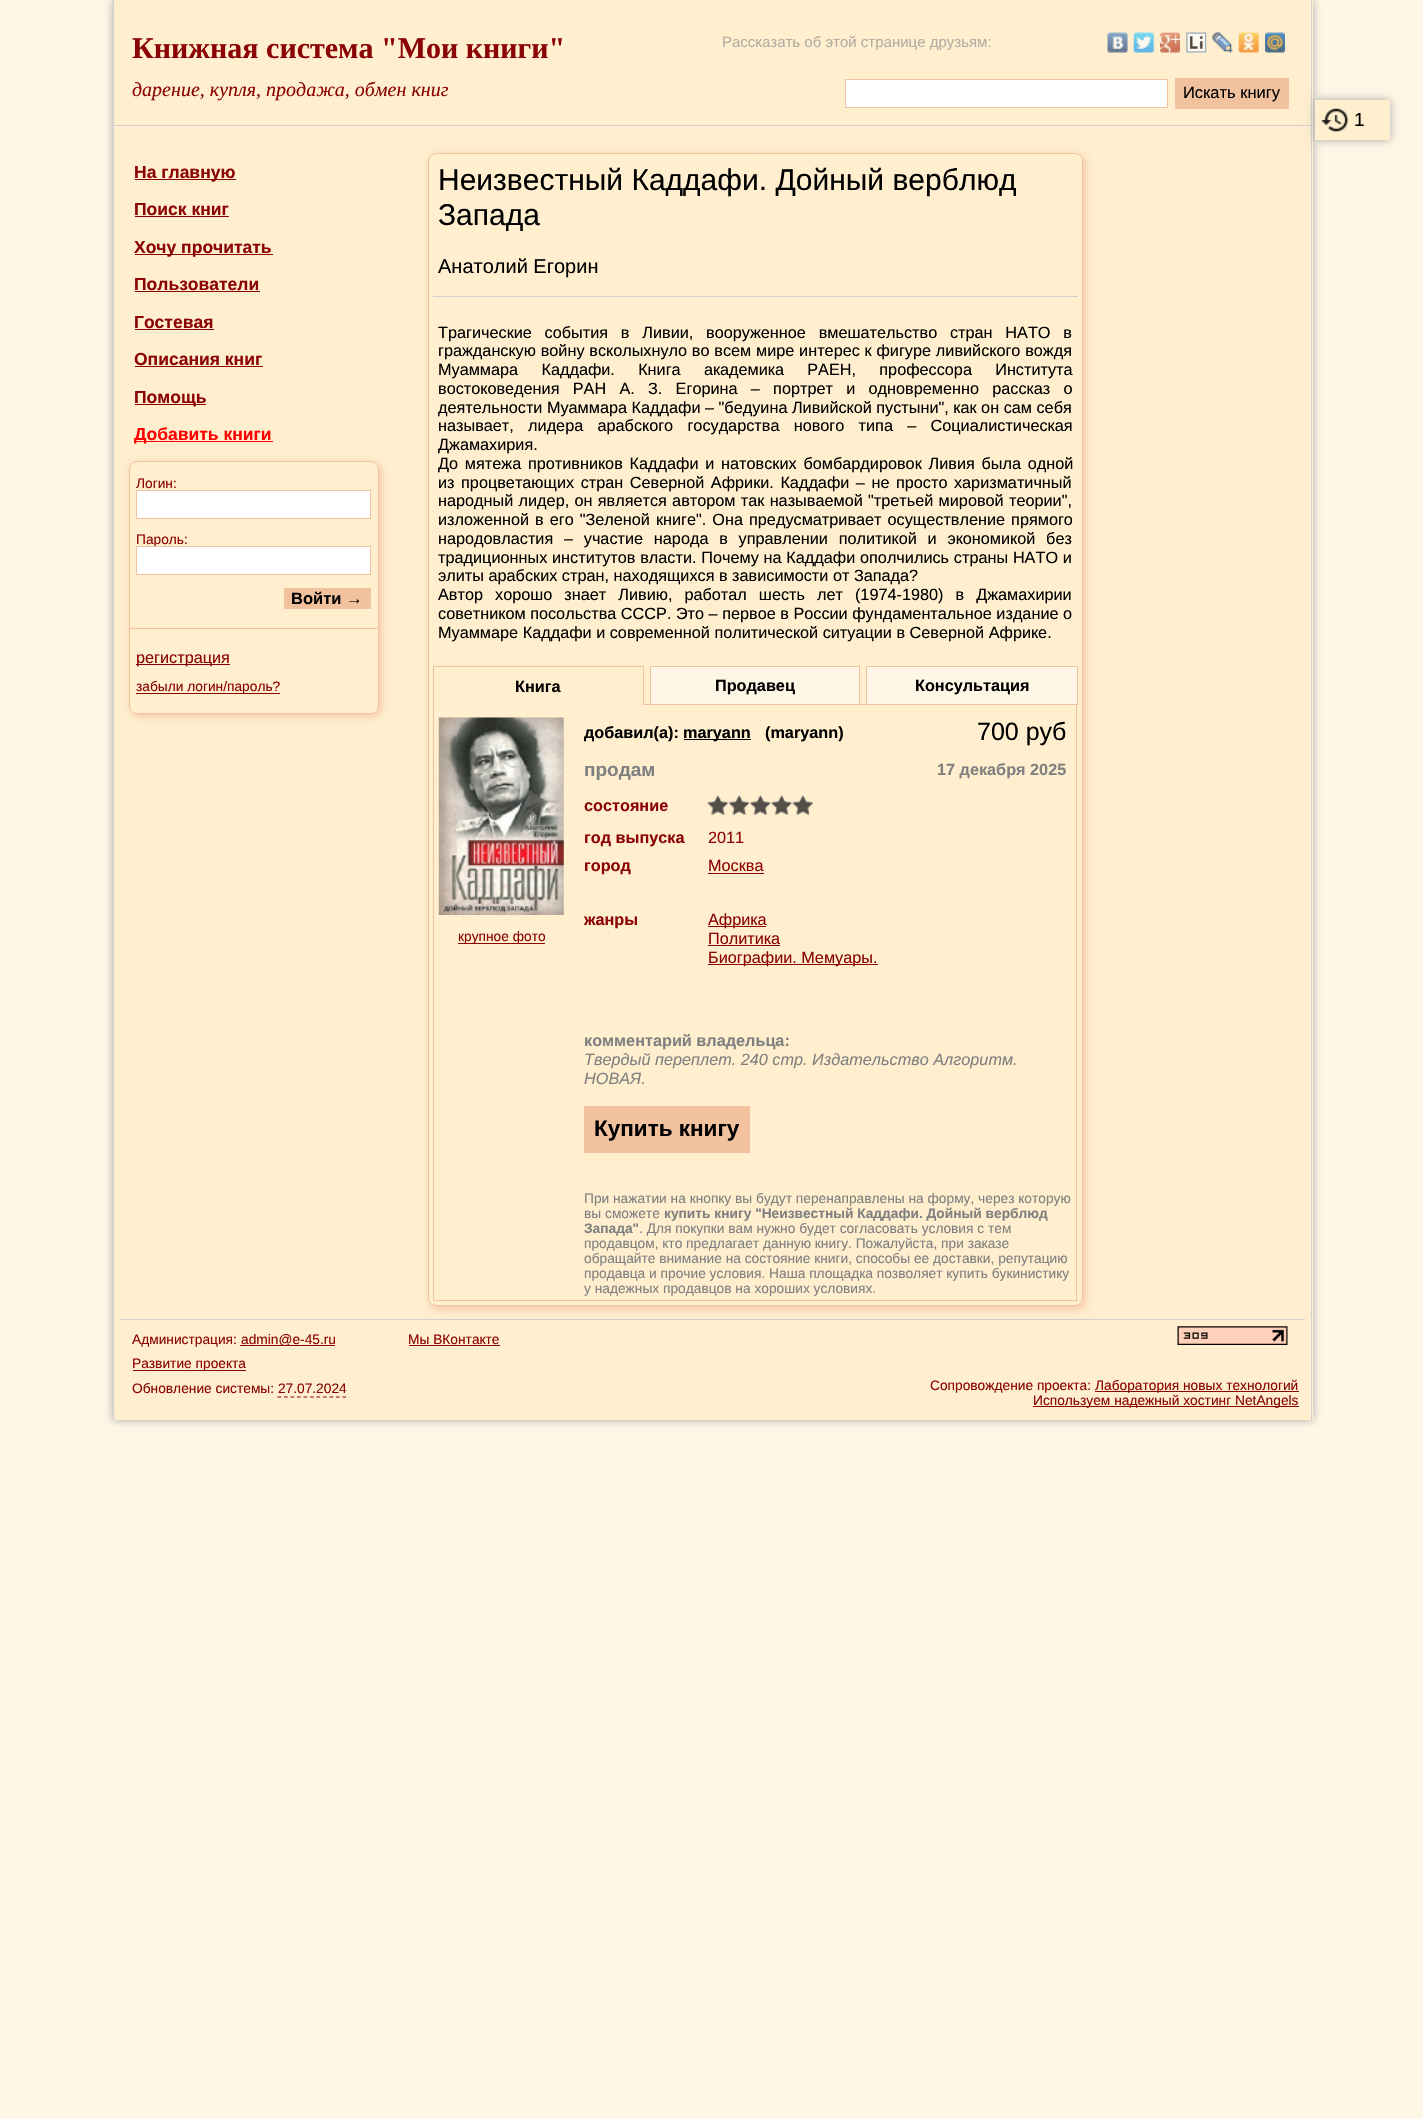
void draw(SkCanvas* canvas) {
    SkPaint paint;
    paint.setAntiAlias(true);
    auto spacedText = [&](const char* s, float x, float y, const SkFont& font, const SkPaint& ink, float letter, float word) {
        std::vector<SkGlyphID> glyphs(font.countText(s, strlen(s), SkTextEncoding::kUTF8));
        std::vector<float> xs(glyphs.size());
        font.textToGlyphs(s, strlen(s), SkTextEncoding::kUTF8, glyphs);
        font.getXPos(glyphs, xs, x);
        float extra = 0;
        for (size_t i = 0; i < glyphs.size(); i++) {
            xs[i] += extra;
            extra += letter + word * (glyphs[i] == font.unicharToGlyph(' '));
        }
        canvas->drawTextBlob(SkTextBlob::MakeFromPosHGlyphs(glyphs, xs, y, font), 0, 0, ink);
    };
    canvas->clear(0xFFFFF7E6);
    paint.setColor(0xFFAAAAAA);
    paint.setMaskFilter(SkMaskFilter::MakeBlur(kNormal_SkBlurStyle, 4.5f));
    canvas->drawRect(SkRect::MakeXYWH(113, 0, 1200, 1420), paint);
    paint.setMaskFilter(nullptr);
    paint.setColor(0xFFFFEFCF);
    canvas->drawRect(SkRect::MakeXYWH(114, 0, 1199, 1420), paint);
    paint.setColor(0xFFD0D0D0);
    canvas->drawRect(SkRect::MakeXYWH(1311, 0, 1, 1420), paint);
    canvas->drawRect(SkRect::MakeXYWH(113, 0, 1, 1420), paint);
    canvas->drawRect(SkRect::MakeXYWH(114, 125, 1197, 1), paint);
    SkFont font1(fontMgr->matchFamilyStyle("Liberation Serif", SkFontStyle::Bold()), 30);
    font1.setSubpixel(true);
    paint.setColor(0xFF8B0304);
    canvas->drawString("Книжная система \"Мои книги\"", 132, 58, font1, paint);
    SkFont font2(fontMgr->matchFamilyStyle("Liberation Sans", SkFontStyle::Normal()), 15);
    font2.setSubpixel(true);
    paint.setColor(0xFFB1ADA3);
    canvas->drawString("Рассказать об этой странице друзьям:", 722, 47, font2, paint);
    canvas->drawImageRect(SkImages::DeferredFromEncodedData(SkData::MakeFromFileName("img1.png")), SkRect::MakeXYWH(1107, 32, 21, 21), SkSamplingOptions());
    canvas->drawImageRect(SkImages::DeferredFromEncodedData(SkData::MakeFromFileName("img2.png")), SkRect::MakeXYWH(1133, 32, 21, 21), SkSamplingOptions());
    canvas->drawImageRect(SkImages::DeferredFromEncodedData(SkData::MakeFromFileName("img3.png")), SkRect::MakeXYWH(1160, 32, 20, 21), SkSamplingOptions());
    canvas->drawImageRect(SkImages::DeferredFromEncodedData(SkData::MakeFromFileName("img4.png")), SkRect::MakeXYWH(1186, 32, 21, 21), SkSamplingOptions());
    canvas->drawImageRect(SkImages::DeferredFromEncodedData(SkData::MakeFromFileName("img5.png")), SkRect::MakeXYWH(1212, 32, 21, 21), SkSamplingOptions());
    canvas->drawImageRect(SkImages::DeferredFromEncodedData(SkData::MakeFromFileName("img6.png")), SkRect::MakeXYWH(1238, 32, 21, 21), SkSamplingOptions());
    canvas->drawImageRect(SkImages::DeferredFromEncodedData(SkData::MakeFromFileName("img7.png")), SkRect::MakeXYWH(1265, 32, 20, 21), SkSamplingOptions());
    SkFont font3(fontMgr->matchFamilyStyle("Liberation Serif", SkFontStyle::Italic()), 20);
    font3.setSubpixel(true);
    paint.setColor(0xFF8B0304);
    canvas->drawString("дарение, купля, продажа, обмен книг", 132, 96, font3, paint);
    paint.setColor(0xFFFFFFFF);
    canvas->drawRect(SkRect::MakeXYWH(845.5f, 79.5f, 322, 28), paint);
    paint.setStyle(SkPaint::kStroke_Style);
    paint.setStrokeWidth(1);
    paint.setColor(0xFFF2C29F);
    canvas->drawRect(SkRect::MakeXYWH(845.5f, 79.5f, 322, 28), paint);
    paint.setStyle(SkPaint::kFill_Style);
    canvas->drawRect(SkRect::MakeXYWH(1175, 78, 114, 31), paint);
    SkFont font4(fontMgr->matchFamilyStyle("Liberation Sans", SkFontStyle::Normal()), 16.5f);
    font4.setSubpixel(true);
    paint.setColor(0xFF000000);
    canvas->drawString("Искать книгу", 1183, 98, font4, paint);
    paint.setColor(0xFFAAAAAA);
    paint.setMaskFilter(SkMaskFilter::MakeBlur(kNormal_SkBlurStyle, 4.5f));
    canvas->drawRect(SkRect::MakeXYWH(1315, 100, 75, 40), paint);
    paint.setMaskFilter(nullptr);
    paint.setColor(0xFFFFEFCF);
    canvas->drawRect(SkRect::MakeXYWH(1315, 100, 75, 40), paint);
    canvas->drawImageRect(SkImages::DeferredFromEncodedData(SkData::MakeFromFileName("img8.png")), SkRect::MakeXYWH(1321, 108, 27, 24), SkSamplingOptions());
    SkFont font5(fontMgr->matchFamilyStyle("Liberation Sans", SkFontStyle::Normal()), 19);
    font5.setSubpixel(true);
    paint.setColor(0xFF000000);
    canvas->drawString("1", 1354, 126, font5, paint);
    paint.setColor(0xFF8B0304);
    canvas->drawRect(SkRect::MakeXYWH(135, 179, 101, 1), paint);
    SkFont font6(fontMgr->matchFamilyStyle("Liberation Sans", SkFontStyle::Bold()), 17.5f);
    font6.setSubpixel(true);
    canvas->drawString("На главную", 134, 178, font6, paint);
    canvas->drawString("Поиск книг", 134, 215, font6, paint);
    canvas->drawRect(SkRect::MakeXYWH(135, 216, 94, 1), paint);
    canvas->drawRect(SkRect::MakeXYWH(135, 254, 138, 1), paint);
    canvas->drawString("Хочу прочитать", 134, 253, font6, paint);
    canvas->drawString("Пользователи", 134, 290, font6, paint);
    canvas->drawRect(SkRect::MakeXYWH(135, 291, 125, 1), paint);
    canvas->drawString("Гостевая", 134, 328, font6, paint);
    canvas->drawRect(SkRect::MakeXYWH(135, 329, 79, 1), paint);
    canvas->drawString("Описания книг", 134, 365, font6, paint);
    canvas->drawRect(SkRect::MakeXYWH(135, 366, 128, 1), paint);
    canvas->drawRect(SkRect::MakeXYWH(135, 404, 71, 1), paint);
    canvas->drawString("Помощь", 134, 403, font6, paint);
    paint.setColor(0xFFFF0000);
    canvas->drawRect(SkRect::MakeXYWH(135, 441, 138, 1), paint);
    canvas->drawString("Добавить книги", 134, 440, font6, paint);
    canvas->save();
    canvas->clipPath(SkPathBuilder(SkPathFillType::kEvenOdd).moveTo(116, 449).lineTo(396, 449).lineTo(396, 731).lineTo(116, 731).close().moveTo(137, 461).lineTo(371, 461).cubicTo(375.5f, 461, 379, 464.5f, 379, 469).lineTo(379, 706).cubicTo(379, 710.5f, 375.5f, 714, 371, 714).lineTo(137, 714).cubicTo(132.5f, 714, 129, 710.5f, 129, 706).lineTo(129, 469).cubicTo(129, 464.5f, 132.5f, 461, 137, 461).close().detach(), true);
    paint.setColor(0xFFF2C29F);
    paint.setMaskFilter(SkMaskFilter::MakeBlur(kNormal_SkBlurStyle, 4.5f));
    canvas->drawRoundRect(SkRect::MakeXYWH(131, 464, 250, 252), 8, 8, paint);
    paint.setMaskFilter(nullptr);
    canvas->restore();
    paint.setStyle(SkPaint::kStroke_Style);
    canvas->drawRoundRect(SkRect::MakeXYWH(129.5f, 461.5f, 249, 252), 7.5f, 7.5f, paint);
    SkFont font7(fontMgr->matchFamilyStyle("Liberation Sans", SkFontStyle::Normal()), 13.75f);
    font7.setSubpixel(true);
    paint.setStyle(SkPaint::kFill_Style);
    paint.setColor(0xFF8B0304);
    canvas->drawString("Логин:", 136, 488, font7, paint);
    paint.setColor(0xFFFFFFFF);
    canvas->drawRect(SkRect::MakeXYWH(136.5f, 490.5f, 234, 28), paint);
    paint.setStyle(SkPaint::kStroke_Style);
    paint.setColor(0xFFF2C29F);
    canvas->drawRect(SkRect::MakeXYWH(136.5f, 490.5f, 234, 28), paint);
    paint.setStyle(SkPaint::kFill_Style);
    paint.setColor(0xFF8B0304);
    canvas->drawString("Пароль:", 136, 544, font7, paint);
    paint.setColor(0xFFFFFFFF);
    canvas->drawRect(SkRect::MakeXYWH(136.5f, 546.5f, 234, 28), paint);
    paint.setStyle(SkPaint::kStroke_Style);
    paint.setColor(0xFFF2C29F);
    canvas->drawRect(SkRect::MakeXYWH(136.5f, 546.5f, 234, 28), paint);
    paint.setStyle(SkPaint::kFill_Style);
    canvas->drawRect(SkRect::MakeXYWH(284, 588, 87, 21), paint);
    SkFont font8(fontMgr->matchFamilyStyle("Liberation Sans", SkFontStyle::Bold()), 16.5f);
    font8.setSubpixel(true);
    paint.setColor(0xFF000000);
    canvas->drawString("Войти →", 291, 604, font8, paint);
    paint.setColor(0xFFF2C29F);
    canvas->drawRect(SkRect::MakeXYWH(130, 628, 248, 1), paint);
    paint.setColor(0xFF8B0304);
    canvas->drawRect(SkRect::MakeXYWH(136, 664, 94, 1), paint);
    SkFont font9(fontMgr->matchFamilyStyle("Liberation Sans", SkFontStyle::Normal()), 16.25f);
    font9.setSubpixel(true);
    canvas->drawString("регистрация", 136, 663, font9, paint);
    canvas->drawRect(SkRect::MakeXYWH(136, 693, 144, 1), paint);
    canvas->drawString("забыли логин/пароль?", 136, 691, font7, paint);
    canvas->save();
    canvas->clipPath(SkPathBuilder(SkPathFillType::kEvenOdd).moveTo(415, 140).lineTo(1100, 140).lineTo(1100, 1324).lineTo(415, 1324).close().moveTo(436, 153).lineTo(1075, 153).cubicTo(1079.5f, 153, 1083, 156.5f, 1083, 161).lineTo(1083, 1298).cubicTo(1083, 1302.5f, 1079.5f, 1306, 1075, 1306).lineTo(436, 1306).cubicTo(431.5f, 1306, 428, 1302.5f, 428, 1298).lineTo(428, 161).cubicTo(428, 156.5f, 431.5f, 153, 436, 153).close().detach(), true);
    paint.setColor(0xFFF2C29F);
    paint.setMaskFilter(SkMaskFilter::MakeBlur(kNormal_SkBlurStyle, 4.5f));
    canvas->drawRoundRect(SkRect::MakeXYWH(430, 155, 655, 1154), 8, 8, paint);
    paint.setMaskFilter(nullptr);
    canvas->restore();
    paint.setStyle(SkPaint::kStroke_Style);
    canvas->drawRoundRect(SkRect::MakeXYWH(428.5f, 153.5f, 654, 1152), 7.5f, 7.5f, paint);
    paint.setStyle(SkPaint::kFill_Style);
    paint.setColor(0xFFD0D0D0);
    canvas->drawRect(SkRect::MakeXYWH(433, 296, 645, 1), paint);
    SkFont font10(fontMgr->matchFamilyStyle("Liberation Sans", SkFontStyle::Normal()), 30);
    font10.setSubpixel(true);
    paint.setColor(0xFF000000);
    canvas->drawString("Неизвестный Каддафи. Дойный верблюд", 438, 190, font10, paint);
    canvas->drawString("Запада", 438, 225, font10, paint);
    SkFont font11(fontMgr->matchFamilyStyle("Liberation Sans", SkFontStyle::Normal()), 20);
    font11.setSubpixel(true);
    canvas->drawString("Анатолий Егорин", 438, 273, font11, paint);
    spacedText("Трагические события в Ливии, вооруженное вмешательство стран НАТО в", 438, 338, font9, paint, 0, 8.25f);
    spacedText("гражданскую войну всколыхнуло во всем мире интерес к фигуре ливийского вождя", 438, 356, font9, paint, 0, 0.25f);
    spacedText("Муаммара Каддафи. Книга академика РАЕН, профессора Института", 438, 375, font9, paint, 0, 18.75f);
    spacedText("востоковедения РАН А. З. Егорина – портрет и одновременно рассказ о", 438, 394, font9, paint, 0, 8.75f);
    canvas->drawString("деятельности Муаммара Каддафи – \"бедуина Ливийской пустыни\", как он сам себя", 438, 413, font9, paint);
    spacedText("называет, лидера арабского государства нового типа – Социалистическая", 438, 431, font9, paint, 0, 9.75f);
    canvas->drawString("Джамахирия.", 438, 450, font9, paint);
    spacedText("До мятежа противников Каддафи и натовских бомбардировок Ливия была одной", 438, 469, font9, paint, 0, 2.25f);
    spacedText("из процветающих стран Северной Африки. Каддафи – не просто харизматичный", 438, 488, font9, paint, 0, 2);
    spacedText("народный лидер, он является автором так называемой \"третьей мировой теории\",", 438, 506, font9, paint, 0, 0.75f);
    spacedText("изложенной в его \"Зеленой книге\". Она предусматривает осуществление прямого", 438, 525, font9, paint, 0, 1.5f);
    spacedText("народовластия – участие народа в управлении политикой и экономикой без", 438, 544, font9, paint, 0, 6.25f);
    spacedText("традиционных институтов власти. Почему на Каддафи ополчились страны НАТО и", 438, 563, font9, paint, 0, 0.25f);
    canvas->drawString("элиты арабских стран, находящихся в зависимости от Запада?", 438, 581, font9, paint);
    spacedText("Автор хорошо знает Ливию, работал шесть лет (1974-1980) в Джамахирии", 438, 600, font9, paint, 0, 7.5f);
    canvas->drawString("советником посольства СССР. Это – первое в России фундаментальное издание о", 438, 619, font9, paint);
    canvas->drawString("Муаммаре Каддафи и современной политической ситуации в Северной Африке.", 438, 638, font9, paint);
    paint.setColor(0xFFF2C29F);
    canvas->drawRect(SkRect::MakeXYWH(433, 666, 211, 1), paint);
    canvas->drawRect(SkRect::MakeXYWH(643, 666, 1, 39), paint);
    canvas->drawRect(SkRect::MakeXYWH(433, 666, 1, 39), paint);
    SkFont font12(fontMgr->matchFamilyStyle("Liberation Sans", SkFontStyle::Bold()), 16.25f);
    font12.setSubpixel(true);
    paint.setColor(0xFF000000);
    canvas->drawString("Книга", 515, 692, font12, paint);
    paint.setColor(0xFFFFF7E6);
    canvas->drawRect(SkRect::MakeXYWH(650.5f, 666.5f, 209, 38), paint);
    paint.setStyle(SkPaint::kStroke_Style);
    paint.setColor(0xFFF2C29F);
    canvas->drawRect(SkRect::MakeXYWH(650.5f, 666.5f, 209, 38), paint);
    paint.setStyle(SkPaint::kFill_Style);
    paint.setColor(0xFF000000);
    canvas->drawString("Продавец", 715, 691, font12, paint);
    paint.setColor(0xFFFFF7E6);
    canvas->drawRect(SkRect::MakeXYWH(866.5f, 666.5f, 211, 38), paint);
    paint.setStyle(SkPaint::kStroke_Style);
    paint.setColor(0xFFF2C29F);
    canvas->drawRect(SkRect::MakeXYWH(866.5f, 666.5f, 211, 38), paint);
    paint.setStyle(SkPaint::kFill_Style);
    paint.setColor(0xFF000000);
    canvas->drawString("Консультация", 915, 691, font12, paint);
    paint.setColor(0xFFF2C29F);
    canvas->drawRect(SkRect::MakeXYWH(644, 704, 6, 1), paint);
    canvas->drawRect(SkRect::MakeXYWH(860, 704, 6, 1), paint);
    canvas->drawRect(SkRect::MakeXYWH(433, 1300, 146, 1), paint);
    canvas->drawRect(SkRect::MakeXYWH(433, 705, 1, 596), paint);
    canvas->drawImageRect(SkImages::DeferredFromEncodedData(SkData::MakeFromFileName("img9.png")), SkRect::MakeXYWH(438, 717, 126, 198), SkSamplingOptions());
    paint.setColor(0xFF8B0304);
    canvas->drawRect(SkRect::MakeXYWH(458, 943, 87, 1), paint);
    canvas->drawString("крупное фото", 458, 941, font7, paint);
    paint.setColor(0xFFF2C29F);
    canvas->drawRect(SkRect::MakeXYWH(1076, 705, 1, 596), paint);
    canvas->drawRect(SkRect::MakeXYWH(579, 1300, 499, 1), paint);
    paint.setColor(0xFF000000);
    canvas->drawString("добавил(a):", 584, 738, font12, paint);
    canvas->drawRect(SkRect::MakeXYWH(684, 739, 67, 1), paint);
    canvas->drawString("maryann", 683, 738, font12, paint);
    canvas->drawString("(maryann)", 765, 738, font12, paint);
    SkFont font13(fontMgr->matchFamilyStyle("Liberation Sans", SkFontStyle::Normal()), 25);
    font13.setSubpixel(true);
    canvas->drawString("700 руб", 977, 740, font13, paint);
    SkFont font14(fontMgr->matchFamilyStyle("Liberation Sans", SkFontStyle::Bold()), 19);
    font14.setSubpixel(true);
    paint.setColor(0xFF808080);
    canvas->drawString("продам", 584, 776, font14, paint);
    canvas->drawString("17 декабря 2025", 937, 775, font12, paint);
    paint.setColor(0xFF8B0304);
    canvas->drawString("состояние", 584, 811, font12, paint);
    canvas->drawImageRect(SkImages::DeferredFromEncodedData(SkData::MakeFromFileName("img10.png")), SkRect::MakeXYWH(707, 795, 106, 20), SkSamplingOptions());
    canvas->drawString("год выпуска", 584, 843, font12, paint);
    canvas->drawString("2011", 708, 843, font9, paint);
    canvas->drawString("город", 584, 871, font12, paint);
    canvas->drawString("Москва", 708, 871, font9, paint);
    canvas->drawRect(SkRect::MakeXYWH(708, 873, 56, 1), paint);
    canvas->drawString("жанры", 584, 925, font12, paint);
    canvas->drawRect(SkRect::MakeXYWH(708, 926, 58, 1), paint);
    canvas->drawString("Африка", 708, 925, font9, paint);
    canvas->drawString("Политика", 708, 944, font9, paint);
    canvas->drawRect(SkRect::MakeXYWH(708, 945, 72, 1), paint);
    canvas->drawRect(SkRect::MakeXYWH(708, 964, 170, 1), paint);
    canvas->drawString("Биографии. Мемуары.", 708, 963, font9, paint);
    paint.setColor(0xFF808080);
    canvas->drawString("комментарий владельца:", 584, 1046, font12, paint);
    SkFont font15(fontMgr->matchFamilyStyle("Liberation Sans", SkFontStyle::Italic()), 16.25f);
    font15.setSubpixel(true);
    canvas->drawString("Твердый переплет. 240 стр. Издательство Алгоритм.", 584, 1065, font15, paint);
    canvas->drawString("НОВАЯ.", 584, 1084, font15, paint);
    paint.setColor(0xFFF2C29F);
    canvas->drawRect(SkRect::MakeXYWH(584, 1106, 166, 47), paint);
    SkFont font16(fontMgr->matchFamilyStyle("Liberation Sans", SkFontStyle::Bold()), 22.5f);
    font16.setSubpixel(true);
    paint.setColor(0xFF000000);
    canvas->drawString("Купить книгу", 594, 1136, font16, paint);
    paint.setColor(0xFF808080);
    canvas->drawString("При нажатии на кнопку вы будут перенаправлены на форму, через которую", 584, 1203, font7, paint);
    canvas->drawString("вы сможете", 584, 1218, font7, paint);
    SkFont font17(fontMgr->matchFamilyStyle("Liberation Sans", SkFontStyle::Bold()), 13.75f);
    font17.setSubpixel(true);
    canvas->drawString("купить книгу \"Неизвестный Каддафи. Дойный верблюд", 664, 1218, font17, paint);
    canvas->drawString("Запада\"", 584, 1233, font17, paint);
    canvas->drawString(". Для покупки вам нужно будет согласовать условия с тем", 639, 1233, font7, paint);
    canvas->drawString("продавцом, кто предлагает данную книгу. Пожалуйста, при заказе", 584, 1248, font7, paint);
    canvas->drawString("обращайте внимание на состояние книги, способы ее доставки, репутацию", 584, 1263, font7, paint);
    canvas->drawString("продавца и прочие условия. Наша площадка позволяет купить букинистику", 584, 1278, font7, paint);
    canvas->drawString("у надежных продавцов на хороших условиях.", 584, 1293, font7, paint);
    paint.setColor(0xFFD0D0D0);
    canvas->drawRect(SkRect::MakeXYWH(120, 1319, 1185, 1), paint);
    paint.setColor(0xFF8B0304);
    canvas->drawString("Администрация:", 132, 1344, font7, paint);
    canvas->drawRect(SkRect::MakeXYWH(240, 1345, 95, 1), paint);
    canvas->drawString("admin@e-45.ru", 241, 1344, font7, paint);
    canvas->drawRect(SkRect::MakeXYWH(133, 1370, 113, 1), paint);
    canvas->drawString("Развитие проекта", 132, 1368, font7, paint);
    canvas->drawString("Обновление системы: 27.07.2024", 132, 1393, font7, paint);
    paint.setStyle(SkPaint::kStroke_Style);
    paint.setStrokeWidth(1.2f);
    paint.setPathEffect(SkDashPathEffect::Make({{3.75f, 2.75f}}, 0));
    canvas->drawPath(SkPathBuilder().moveTo(277.5f, 1397).lineTo(346, 1397).detach(), paint);
    paint.setPathEffect(nullptr);
    paint.setStyle(SkPaint::kFill_Style);
    canvas->drawString("Мы ВКонтакте", 408, 1344, font7, paint);
    canvas->drawRect(SkRect::MakeXYWH(409, 1345, 91, 1), paint);
    canvas->drawImageRect(SkImages::DeferredFromEncodedData(SkData::MakeFromFileName("img11.png")), SkRect::MakeXYWH(1177, 1326, 111, 19), SkSamplingOptions());
    canvas->drawString("Сопровождение проекта:", 930, 1390, font7, paint);
    canvas->drawRect(SkRect::MakeXYWH(1095, 1391, 204, 1), paint);
    canvas->drawString("Лаборатория новых технологий", 1095, 1390, font7, paint);
    canvas->drawRect(SkRect::MakeXYWH(1033, 1406, 266, 1), paint);
    canvas->drawString("Используем надежный хостинг NetAngels", 1033, 1405, font7, paint);
}
